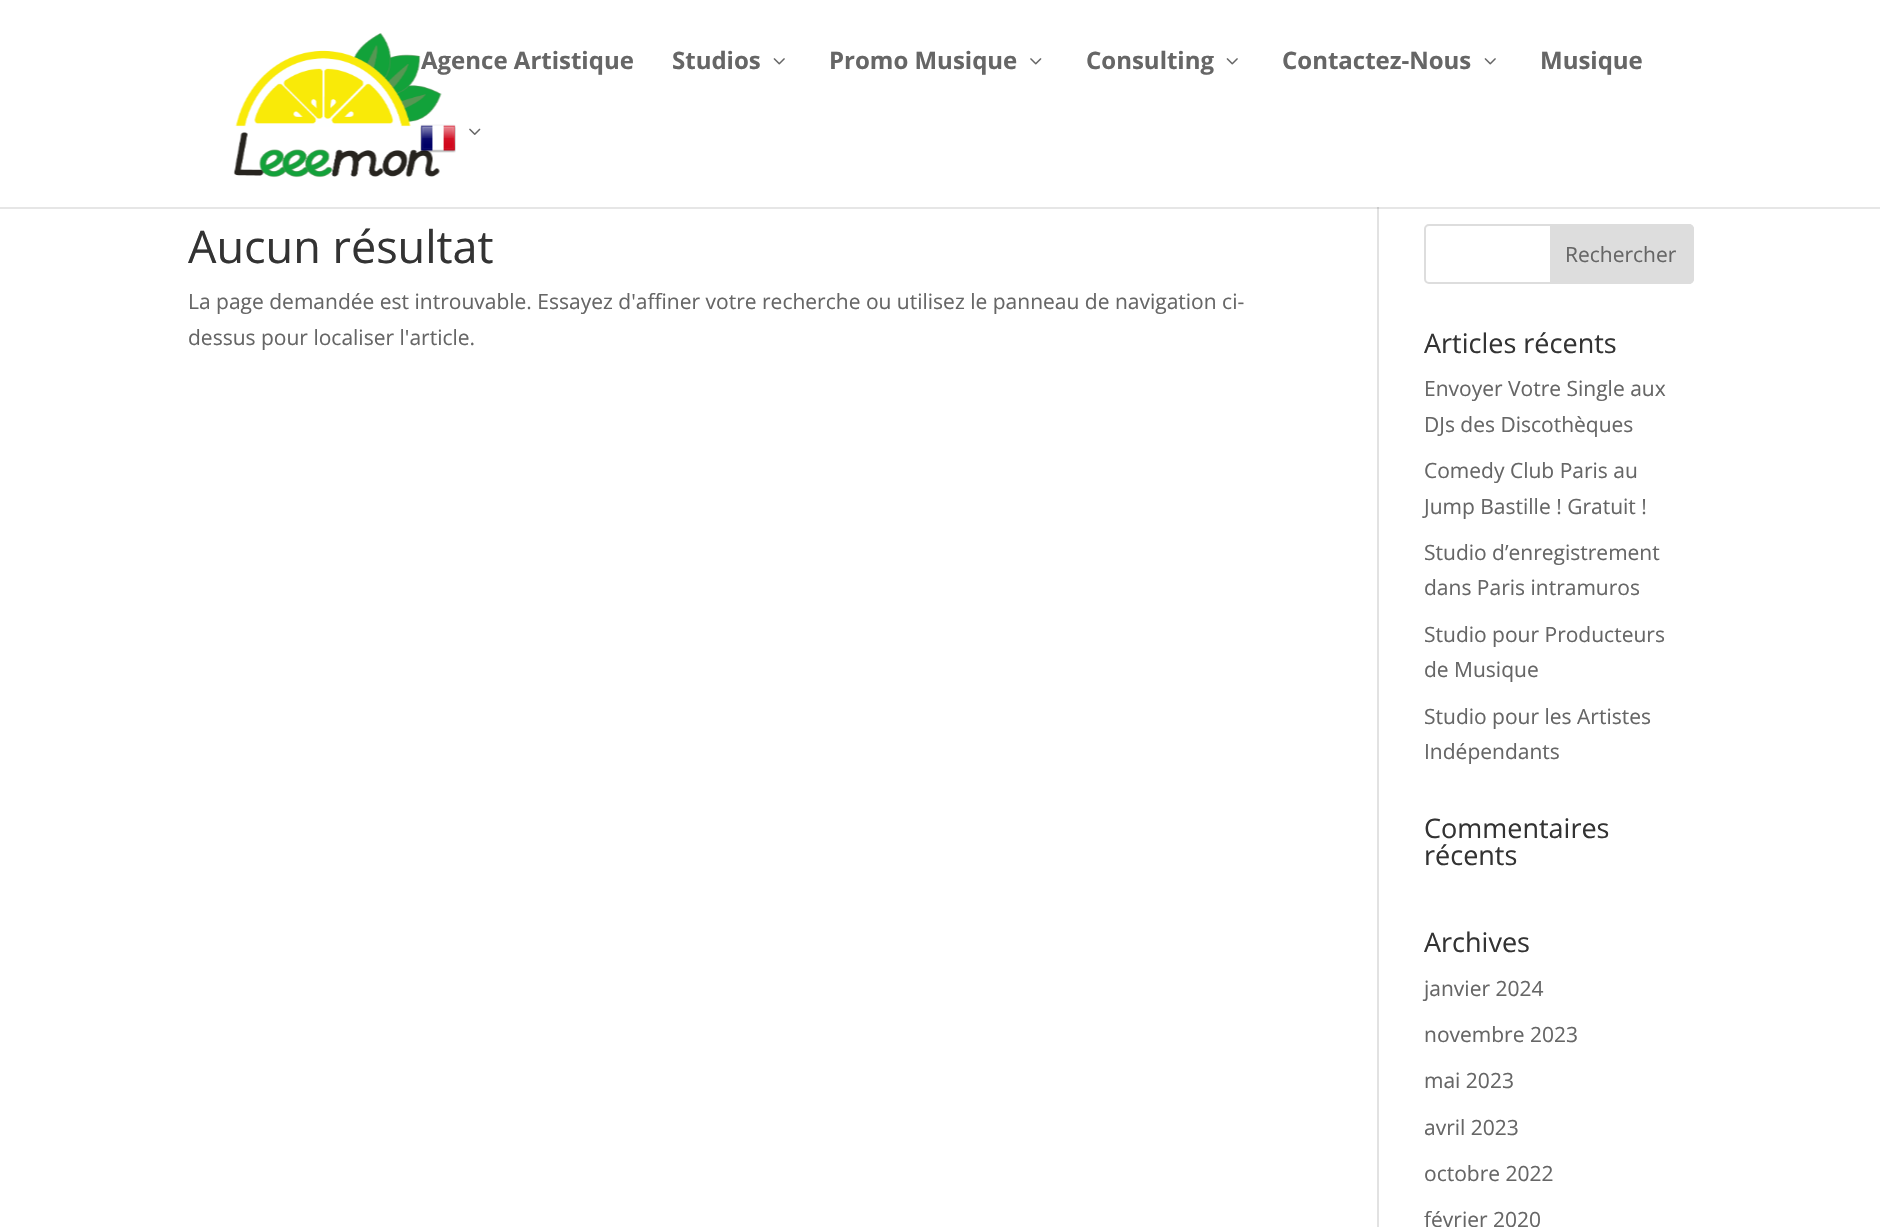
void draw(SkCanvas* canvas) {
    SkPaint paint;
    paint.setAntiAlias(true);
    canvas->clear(0xFFFFFFFF);
    paint.setColor(0xFFE6E6E6);
    canvas->drawRect(SkRect::MakeXYWH(0, 207, 1880, 2), paint);
    canvas->drawImageRect(SkImages::DeferredFromEncodedData(SkData::MakeFromFileName("img1.png")), SkRect::MakeXYWH(233, 33, 209, 145), SkSamplingOptions());
    SkFont font1(fontMgr->matchFamilyStyle("Open Sans", SkFontStyle::Bold()), 24);
    font1.setSubpixel(true);
    paint.setColor(0xFF666666);
    canvas->drawString("Agence Artistique", 421, 69, font1, paint);
    canvas->drawString("Studios", 672, 69, font1, paint);
    canvas->drawImageRect(SkImages::DeferredFromEncodedData(SkData::MakeFromFileName("img2.png")), SkRect::MakeXYWH(773, 58, 12, 7), SkSamplingOptions());
    canvas->drawString("Promo Musique", 829, 69, font1, paint);
    canvas->drawImageRect(SkImages::DeferredFromEncodedData(SkData::MakeFromFileName("img3.png")), SkRect::MakeXYWH(1030, 58, 12, 7), SkSamplingOptions());
    canvas->drawString("Consulting", 1086, 69, font1, paint);
    canvas->drawImageRect(SkImages::DeferredFromEncodedData(SkData::MakeFromFileName("img2.png")), SkRect::MakeXYWH(1226, 58, 12, 7), SkSamplingOptions());
    canvas->drawString("Contactez-Nous", 1282, 69, font1, paint);
    canvas->drawImageRect(SkImages::DeferredFromEncodedData(SkData::MakeFromFileName("img2.png")), SkRect::MakeXYWH(1484, 58, 12, 7), SkSamplingOptions());
    canvas->drawString("Musique", 1540, 69, font1, paint);
    canvas->drawImageRect(SkImages::DeferredFromEncodedData(SkData::MakeFromFileName("img4.png")), SkRect::MakeXYWH(420, 124, 36, 29), SkSamplingOptions());
    canvas->drawImageRect(SkImages::DeferredFromEncodedData(SkData::MakeFromFileName("img5.png")), SkRect::MakeXYWH(469, 128, 12, 7), SkSamplingOptions());
    paint.setColor(0xFFE2E2E2);
    canvas->drawRect(SkRect::MakeXYWH(1377, 209, 2, 1018), paint);
    paint.setColor(0xFFCBCBCB);
    canvas->drawRect(SkRect::MakeXYWH(1377, 207, 2, 2), paint);
    SkFont font2(fontMgr->matchFamilyStyle("Open Sans", SkFontStyle::Normal()), 45);
    font2.setSubpixel(true);
    paint.setColor(0xFF333333);
    canvas->drawString("Aucun résultat", 188, 263, font2, paint);
    SkFont font3(fontMgr->matchFamilyStyle("Open Sans", SkFontStyle::Normal()), 21);
    font3.setSubpixel(true);
    paint.setColor(0xFF666666);
    canvas->drawString("La page demandée est introuvable. Essayez d'affiner votre recherche ou utilisez le panneau de navigation ci-", 188, 309, font3, paint);
    canvas->drawString("dessus pour localiser l'article.", 188, 345, font3, paint);
    paint.setStyle(SkPaint::kStroke_Style);
    paint.setStrokeWidth(2);
    paint.setColor(0xFFDDDDDD);
    canvas->drawRoundRect(SkRect::MakeXYWH(1425, 225, 268, 58), 4, 4, paint);
    paint.setStyle(SkPaint::kFill_Style);
    canvas->drawPath(SkPathBuilder().moveTo(1551, 225).lineTo(1689, 225).cubicTo(1691, 225, 1693, 227, 1693, 229).lineTo(1693, 279).cubicTo(1693, 281, 1691, 283, 1689, 283).lineTo(1551, 283).close().detach(), paint);
    paint.setStyle(SkPaint::kStroke_Style);
    canvas->drawPath(SkPathBuilder().moveTo(1551, 225).lineTo(1689, 225).cubicTo(1691, 225, 1693, 227, 1693, 229).lineTo(1693, 279).cubicTo(1693, 281, 1691, 283, 1689, 283).lineTo(1551, 283).close().detach(), paint);
    paint.setStyle(SkPaint::kFill_Style);
    paint.setColor(0xFF666666);
    canvas->drawString("Rechercher", 1565, 262, font3, paint);
    SkFont font4(fontMgr->matchFamilyStyle("Open Sans", SkFontStyle::Normal()), 27);
    font4.setSubpixel(true);
    paint.setColor(0xFF333333);
    canvas->drawString("Articles récents", 1424, 353, font4, paint);
    paint.setColor(0xFF666666);
    canvas->drawString("Envoyer Votre Single aux", 1424, 396, font3, paint);
    canvas->drawString("DJs des Discothèques", 1424, 432, font3, paint);
    canvas->drawString("Comedy Club Paris au", 1424, 478, font3, paint);
    canvas->drawString("Jump Bastille ! Gratuit !", 1424, 514, font3, paint);
    canvas->drawString("Studio d’enregistrement", 1424, 560, font3, paint);
    canvas->drawString("dans Paris intramuros", 1424, 595, font3, paint);
    canvas->drawString("Studio pour Producteurs", 1424, 642, font3, paint);
    canvas->drawString("de Musique", 1424, 677, font3, paint);
    canvas->drawString("Studio pour les Artistes", 1424, 724, font3, paint);
    canvas->drawString("Indépendants", 1424, 759, font3, paint);
    paint.setColor(0xFF333333);
    canvas->drawString("Commentaires", 1424, 838, font4, paint);
    canvas->drawString("récents", 1424, 865, font4, paint);
    canvas->drawString("Archives", 1424, 952, font4, paint);
    paint.setColor(0xFF666666);
    canvas->drawString("janvier 2024", 1424, 996, font3, paint);
    canvas->drawString("novembre 2023", 1424, 1042, font3, paint);
    canvas->drawString("mai 2023", 1424, 1088, font3, paint);
    canvas->drawString("avril 2023", 1424, 1135, font3, paint);
    canvas->drawString("octobre 2022", 1424, 1181, font3, paint);
    canvas->drawString("février 2020", 1424, 1227, font3, paint);
}
